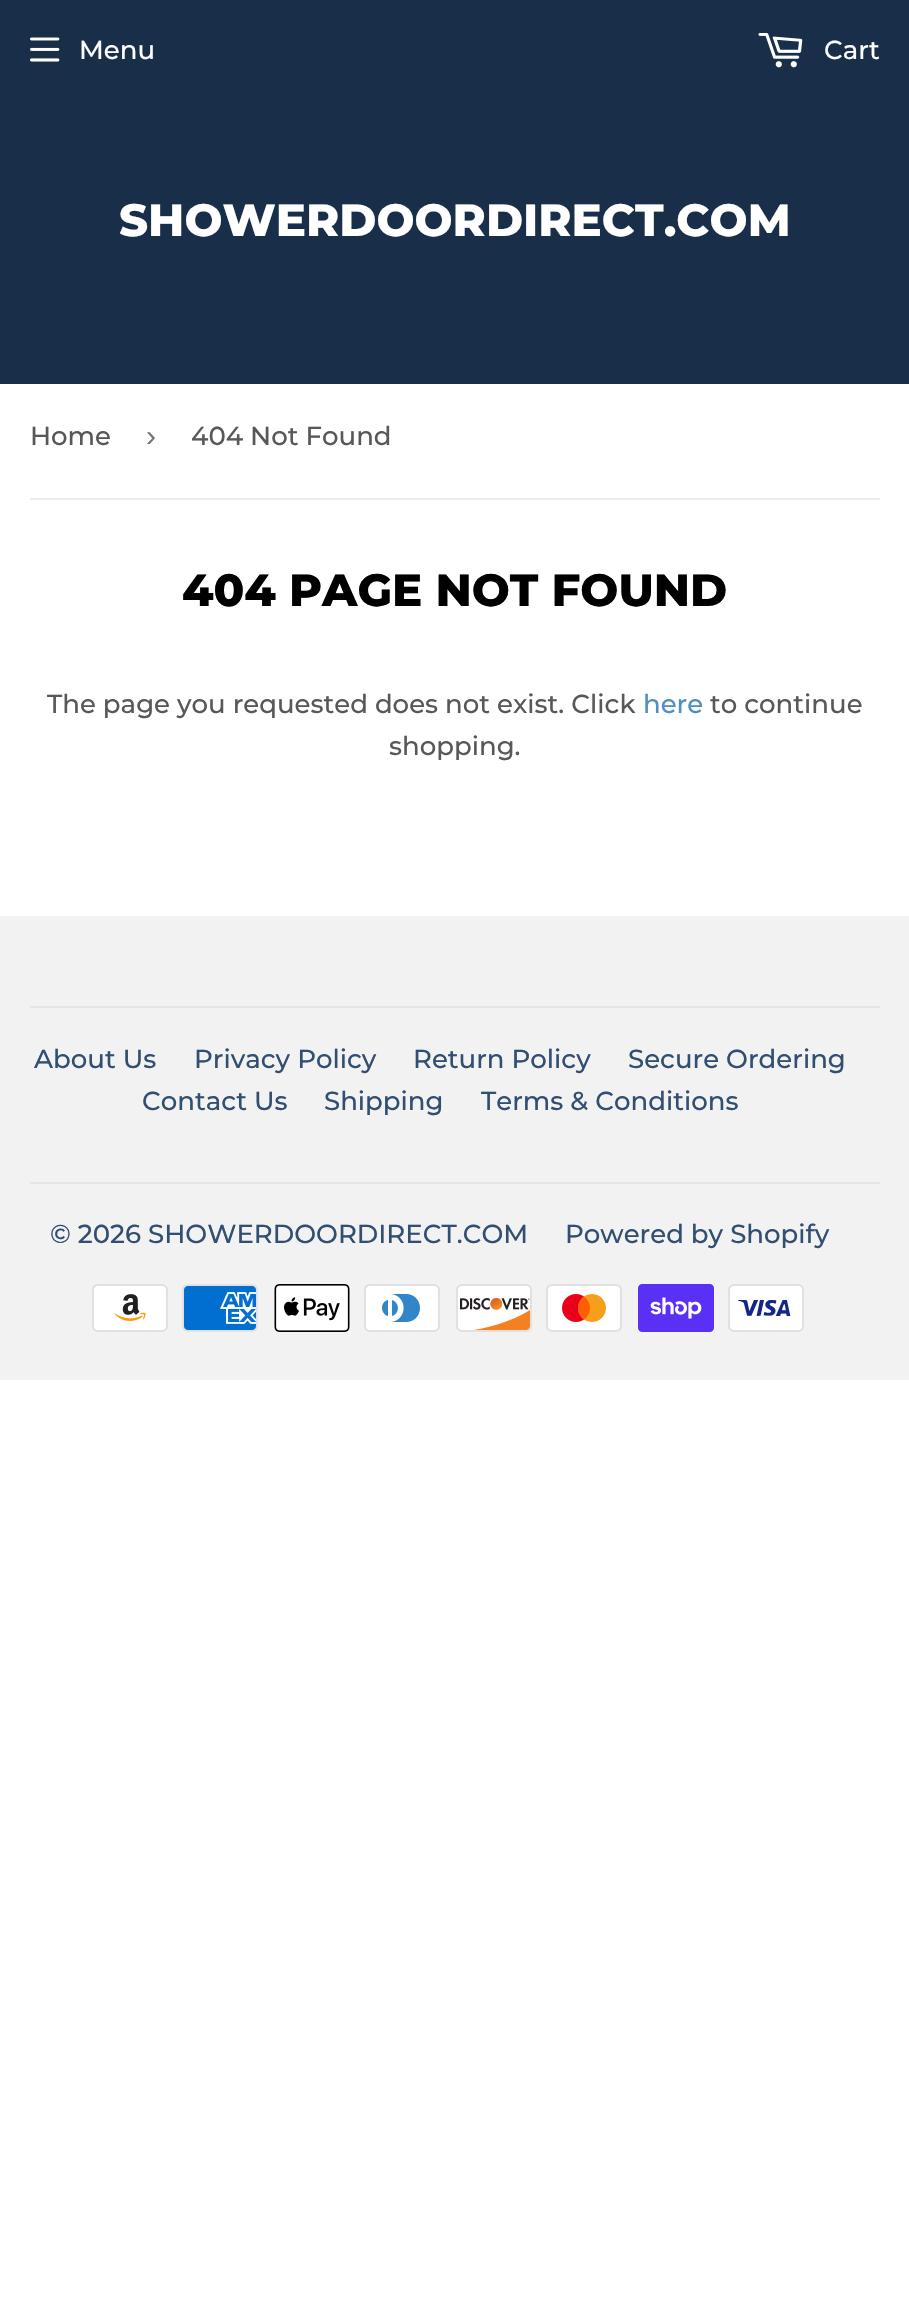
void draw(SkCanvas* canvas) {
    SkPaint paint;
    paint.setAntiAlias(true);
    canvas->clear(0xFFFFFFFF);
    paint.setColor(0xFF182E49);
    canvas->drawRect(SkRect::MakeXYWH(0, 0, 909, 384), paint);
    canvas->drawImageRect(SkImages::DeferredFromEncodedData(SkData::MakeFromFileName("img1.png")), SkRect::MakeXYWH(30, 37, 30, 25), SkSamplingOptions());
    SkFont font1(fontMgr->matchFamilyStyle("Montserrat", SkFontStyle(500, SkFontStyle::kNormal_Width, SkFontStyle::kUpright_Slant)), 26);
    font1.setSubpixel(true);
    paint.setColor(0xFFFFFFFF);
    canvas->drawString("Menu", 79, 59, font1, paint);
    canvas->drawImageRect(SkImages::DeferredFromEncodedData(SkData::MakeFromFileName("img2.png")), SkRect::MakeXYWH(758, 33, 45, 35), SkSamplingOptions());
    canvas->drawString("Cart", 824, 59, font1, paint);
    SkFont font2(fontMgr->matchFamilyStyle("Montserrat", SkFontStyle(800, SkFontStyle::kNormal_Width, SkFontStyle::kUpright_Slant)), 45);
    font2.setSubpixel(true);
    canvas->drawString("SHOWERDOORDIRECT.COM", 119, 236, font2, paint);
    paint.setColor(0xFFECECEC);
    canvas->drawRect(SkRect::MakeXYWH(30, 498, 850, 2), paint);
    paint.setColor(0xFF585858);
    canvas->drawString("Home", 30, 445, font1, paint);
    SkFont font3(fontMgr->matchFamilyStyle("Liberation Sans", SkFontStyle::Normal()), 30);
    font3.setSubpixel(true);
    paint.setColor(0xFF767676);
    canvas->drawString("›", 146, 446, font3, paint);
    paint.setColor(0xFF585858);
    canvas->drawString("404 Not Found", 191, 445, font1, paint);
    paint.setColor(0xFF000000);
    canvas->drawString("404 PAGE NOT FOUND", 182, 606, font2, paint);
    paint.setColor(0xFF585858);
    canvas->drawString("The page you requested does not exist. Click", 47, 713, font1, paint);
    paint.setColor(0xFF528EC1);
    canvas->drawString("here", 643, 713, font1, paint);
    paint.setColor(0xFF585858);
    canvas->drawString("to continue", 710, 713, font1, paint);
    canvas->drawString("shopping.", 389, 755, font1, paint);
    paint.setColor(0xFFF2F2F2);
    canvas->drawRect(SkRect::MakeXYWH(0, 916, 909, 464), paint);
    paint.setColor(0xFFE5E5E5);
    canvas->drawRect(SkRect::MakeXYWH(30, 1006, 850, 2), paint);
    paint.setColor(0xFF324E71);
    canvas->drawString("About Us", 34, 1068, font1, paint);
    canvas->drawString("Privacy Policy", 194, 1068, font1, paint);
    canvas->drawString("Return Policy", 413, 1068, font1, paint);
    canvas->drawString("Secure Ordering", 628, 1068, font1, paint);
    canvas->drawString("Contact Us", 142, 1110, font1, paint);
    canvas->drawString("Shipping", 324, 1110, font1, paint);
    canvas->drawString("Terms & Conditions", 481, 1110, font1, paint);
    paint.setColor(0xFFE5E5E5);
    canvas->drawRect(SkRect::MakeXYWH(30, 1182, 850, 2), paint);
    paint.setColor(0xFF324E71);
    canvas->drawString("© 2026 SHOWERDOORDIRECT.COM", 50, 1243, font1, paint);
    canvas->drawString("Powered by Shopify", 565, 1243, font1, paint);
    canvas->drawImageRect(SkImages::DeferredFromEncodedData(SkData::MakeFromFileName("img3.png")), SkRect::MakeXYWH(92, 1284, 76, 48), SkSamplingOptions());
    canvas->drawImageRect(SkImages::DeferredFromEncodedData(SkData::MakeFromFileName("img4.png")), SkRect::MakeXYWH(182, 1284, 76, 48), SkSamplingOptions());
    canvas->drawImageRect(SkImages::DeferredFromEncodedData(SkData::MakeFromFileName("img5.png")), SkRect::MakeXYWH(274, 1284, 76, 48), SkSamplingOptions());
    canvas->drawImageRect(SkImages::DeferredFromEncodedData(SkData::MakeFromFileName("img6.png")), SkRect::MakeXYWH(364, 1284, 76, 48), SkSamplingOptions());
    canvas->drawImageRect(SkImages::DeferredFromEncodedData(SkData::MakeFromFileName("img7.png")), SkRect::MakeXYWH(456, 1284, 76, 48), SkSamplingOptions());
    canvas->drawImageRect(SkImages::DeferredFromEncodedData(SkData::MakeFromFileName("img8.png")), SkRect::MakeXYWH(546, 1284, 76, 48), SkSamplingOptions());
    canvas->drawImageRect(SkImages::DeferredFromEncodedData(SkData::MakeFromFileName("img9.png")), SkRect::MakeXYWH(638, 1284, 76, 48), SkSamplingOptions());
    canvas->drawImageRect(SkImages::DeferredFromEncodedData(SkData::MakeFromFileName("img10.png")), SkRect::MakeXYWH(728, 1284, 76, 48), SkSamplingOptions());
}
